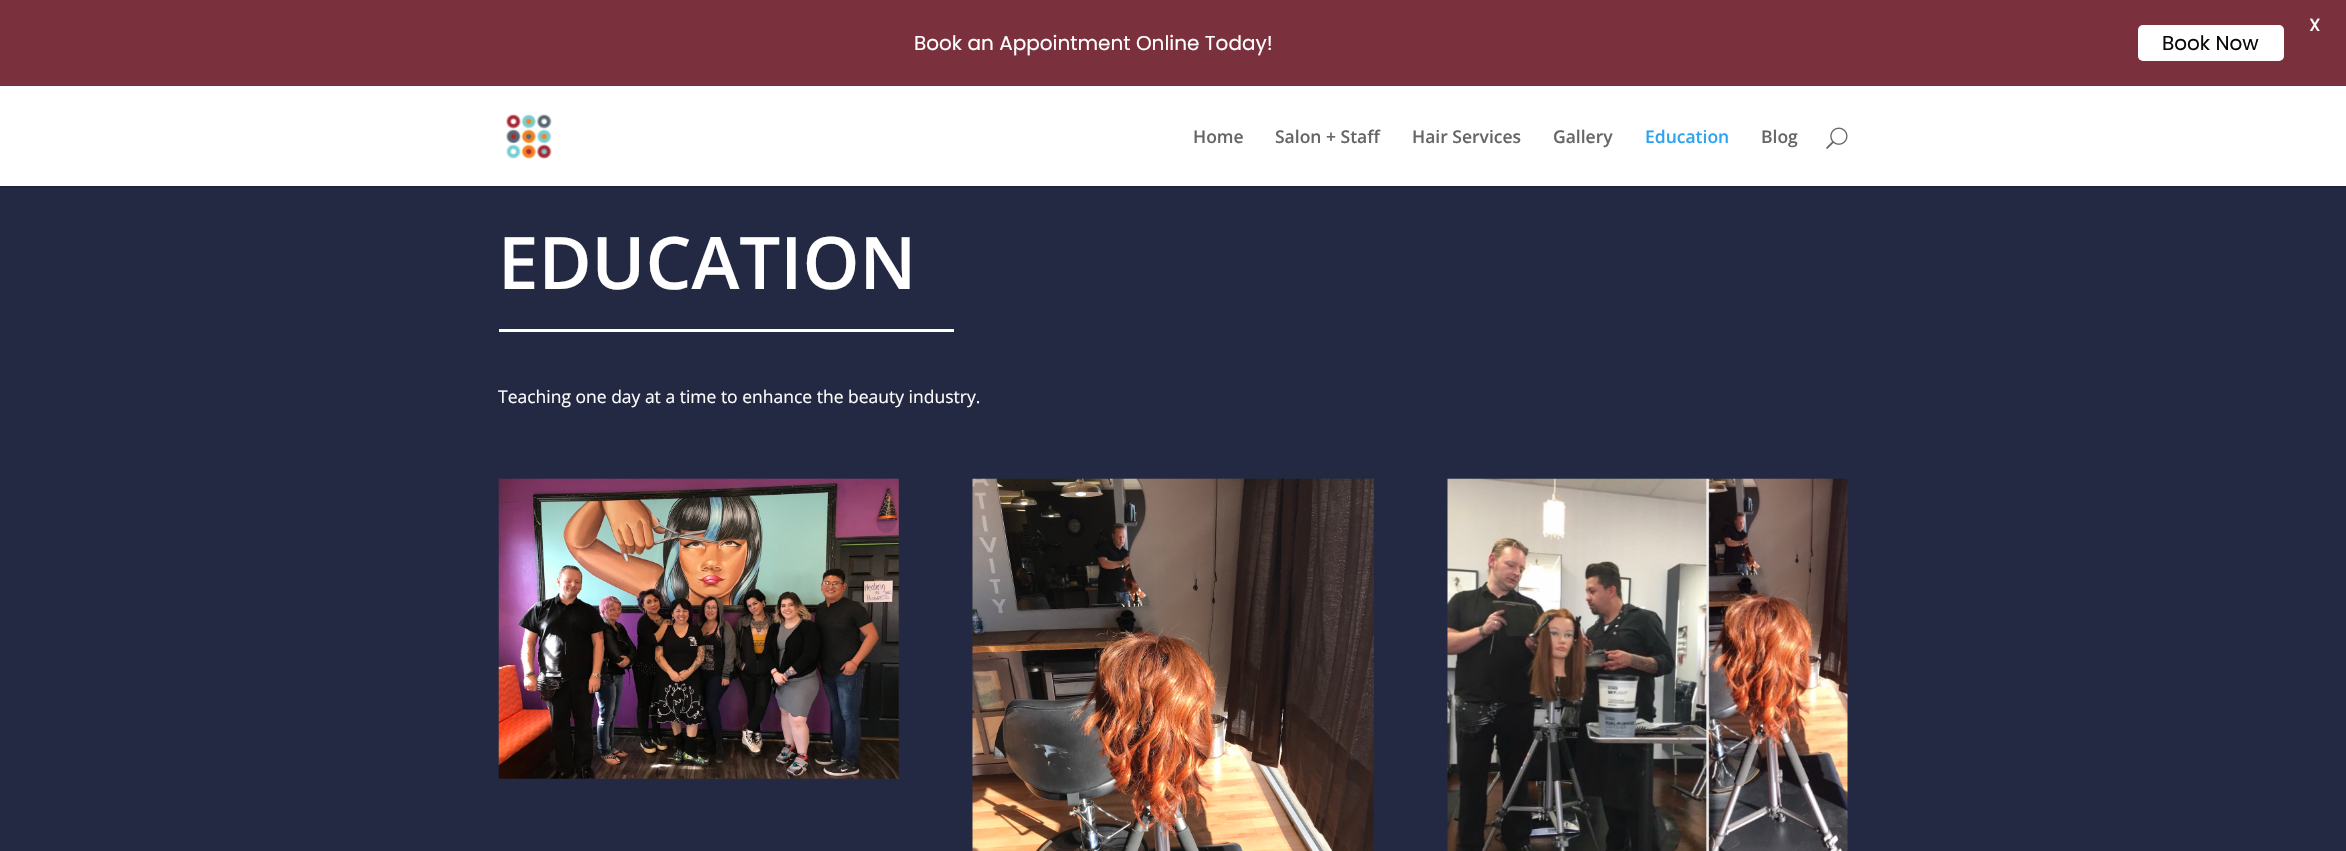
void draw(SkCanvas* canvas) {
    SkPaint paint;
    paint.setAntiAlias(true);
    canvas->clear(0xFF242943);
    paint.setColor(0xFF7B303E);
    canvas->drawRect(SkRect::MakeXYWH(0, 0, 2346, 86), paint);
    SkFont font1(fontMgr->matchFamilyStyle("Poppins", SkFontStyle(500, SkFontStyle::kNormal_Width, SkFontStyle::kUpright_Slant)), 17.5f);
    font1.setSubpixel(true);
    paint.setColor(0xFFFFFFFF);
    canvas->drawString("X", 2309, 31, font1, paint);
    SkFont font2(fontMgr->matchFamilyStyle("Poppins", SkFontStyle::Normal()), 20);
    font2.setSubpixel(true);
    canvas->drawString("Book an Appointment Online Today!", 914, 50, font2, paint);
    canvas->drawRoundRect(SkRect::MakeXYWH(2138, 25, 146, 36), 5, 5, paint);
    paint.setColor(0xFF0A0A0A);
    canvas->drawString("Book Now", 2162, 50, font2, paint);
    paint.setColor(0xFF20253C);
    canvas->drawRect(SkRect::MakeXYWH(0, 186, 2346, 2), paint);
    paint.setColor(0xFFFFFFFF);
    canvas->drawRect(SkRect::MakeXYWH(0, 86, 2346, 100), paint);
    canvas->drawImageRect(SkImages::DeferredFromEncodedData(SkData::MakeFromFileName("img1.png")), SkRect::MakeXYWH(506, 114, 46, 45), SkSamplingOptions());
    SkFont font3(fontMgr->matchFamilyStyle("Open Sans", SkFontStyle(600, SkFontStyle::kNormal_Width, SkFontStyle::kUpright_Slant)), 17.5f);
    font3.setSubpixel(true);
    paint.setColor(0xFF666666);
    canvas->drawString("Home", 1193, 143, font3, paint);
    canvas->drawString("Salon + Staff", 1275, 143, font3, paint);
    canvas->drawString("Hair Services", 1412, 143, font3, paint);
    canvas->drawString("Gallery", 1553, 143, font3, paint);
    paint.setColor(0xFF2EA3F2);
    canvas->drawString("Education", 1645, 143, font3, paint);
    paint.setColor(0xFF666666);
    canvas->drawString("Blog", 1761, 143, font3, paint);
    canvas->drawImageRect(SkImages::DeferredFromEncodedData(SkData::MakeFromFileName("img2.png")), SkRect::MakeXYWH(1826, 127, 22, 22), SkSamplingOptions());
    paint.setColor(0xFFFFFFFF);
    canvas->drawRect(SkRect::MakeXYWH(499, 329, 455, 3), paint);
    SkFont font4(fontMgr->matchFamilyStyle("Open Sans", SkFontStyle(600, SkFontStyle::kNormal_Width, SkFontStyle::kUpright_Slant)), 72.5f);
    font4.setSubpixel(true);
    canvas->drawString("EDUCATION", 498, 289, font4, paint);
    SkFont font5(fontMgr->matchFamilyStyle("Open Sans", SkFontStyle::Normal()), 17.5f);
    font5.setSubpixel(true);
    canvas->drawString("Teaching one day at a time to enhance the beauty industry.", 498, 403, font5, paint);
    canvas->drawImageRect(SkImages::DeferredFromEncodedData(SkData::MakeFromFileName("img3.png")), SkRect::MakeXYWH(498, 478, 401, 301), SkSamplingOptions());
    canvas->drawImageRect(SkImages::DeferredFromEncodedData(SkData::MakeFromFileName("img4.png")), SkRect::MakeXYWH(972, 478, 402, 373), SkSamplingOptions());
    canvas->drawImageRect(SkImages::DeferredFromEncodedData(SkData::MakeFromFileName("img5.png")), SkRect::MakeXYWH(1447, 478, 401, 373), SkSamplingOptions());
}
